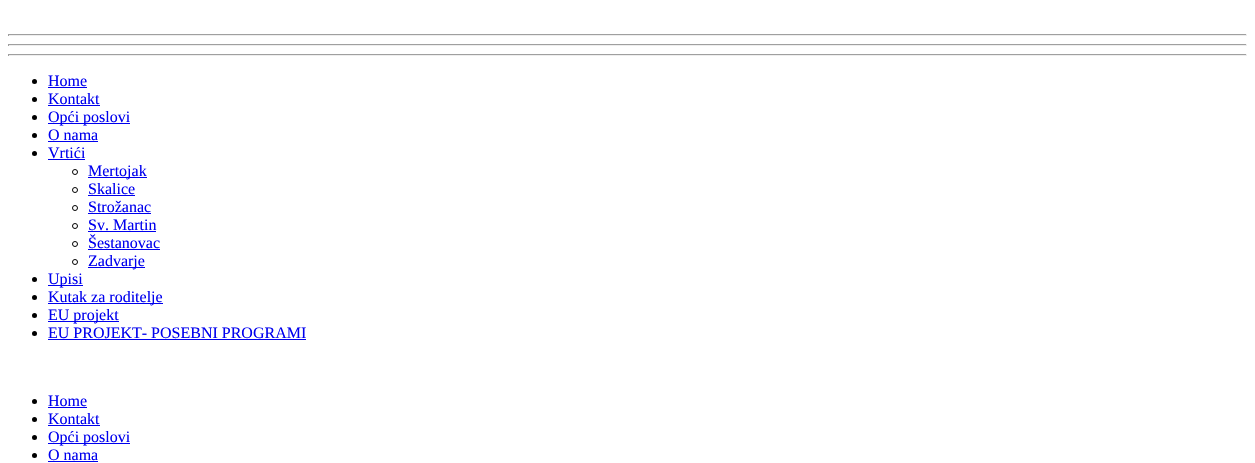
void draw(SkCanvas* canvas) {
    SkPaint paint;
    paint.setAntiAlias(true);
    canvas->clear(0xFFFFFFFF);
    paint.setColor(0xFF9F9F9F);
    canvas->drawRect(SkRect::MakeXYWH(8, 34, 1239, 1), paint);
    paint.setColor(0xFFEEEEEE);
    canvas->drawRect(SkRect::MakeXYWH(1246, 34, 1, 2), paint);
    canvas->drawRect(SkRect::MakeXYWH(8, 35, 1239, 1), paint);
    paint.setColor(0xFF9F9F9F);
    canvas->drawRect(SkRect::MakeXYWH(8, 34, 1, 2), paint);
    canvas->drawRect(SkRect::MakeXYWH(8, 44, 1239, 1), paint);
    paint.setColor(0xFFEEEEEE);
    canvas->drawRect(SkRect::MakeXYWH(1246, 44, 1, 2), paint);
    canvas->drawRect(SkRect::MakeXYWH(8, 45, 1239, 1), paint);
    paint.setColor(0xFF9F9F9F);
    canvas->drawRect(SkRect::MakeXYWH(8, 44, 1, 2), paint);
    canvas->drawRect(SkRect::MakeXYWH(8, 54, 1239, 1), paint);
    paint.setColor(0xFFEEEEEE);
    canvas->drawRect(SkRect::MakeXYWH(1246, 54, 1, 2), paint);
    canvas->drawRect(SkRect::MakeXYWH(8, 55, 1239, 1), paint);
    paint.setColor(0xFF9F9F9F);
    canvas->drawRect(SkRect::MakeXYWH(8, 54, 1, 2), paint);
    paint.setColor(0xFF000000);
    canvas->drawCircle(34.5f, 81.5f, 2.5f, paint);
    SkFont font1(fontMgr->matchFamilyStyle("Liberation Serif", SkFontStyle::Normal()), 16);
    font1.setSubpixel(true);
    paint.setColor(0xFF0000EE);
    canvas->drawString("Home", 48, 86, font1, paint);
    canvas->drawRect(SkRect::MakeXYWH(48, 87, 39, 1), paint);
    paint.setColor(0xFF000000);
    canvas->drawCircle(34.5f, 99.5f, 2.5f, paint);
    paint.setColor(0xFF0000EE);
    canvas->drawString("Kontakt", 48, 104, font1, paint);
    canvas->drawRect(SkRect::MakeXYWH(48, 105, 52, 1), paint);
    paint.setColor(0xFF000000);
    canvas->drawCircle(34.5f, 117.5f, 2.5f, paint);
    paint.setColor(0xFF0000EE);
    canvas->drawRect(SkRect::MakeXYWH(48, 123, 82, 1), paint);
    canvas->drawString("Opći poslovi", 48, 122, font1, paint);
    paint.setColor(0xFF000000);
    canvas->drawCircle(34.5f, 135.5f, 2.5f, paint);
    paint.setColor(0xFF0000EE);
    canvas->drawString("O nama", 48, 140, font1, paint);
    canvas->drawRect(SkRect::MakeXYWH(48, 141, 50, 1), paint);
    paint.setColor(0xFF000000);
    canvas->drawCircle(34.5f, 153.5f, 2.5f, paint);
    paint.setColor(0xFF0000EE);
    canvas->drawString("Vrtići", 48, 158, font1, paint);
    canvas->drawRect(SkRect::MakeXYWH(48, 159, 37, 1), paint);
    paint.setStyle(SkPaint::kStroke_Style);
    paint.setStrokeWidth(1);
    paint.setColor(0xFF000000);
    canvas->drawCircle(75, 172, 2.5f, paint);
    paint.setStyle(SkPaint::kFill_Style);
    paint.setColor(0xFF0000EE);
    canvas->drawRect(SkRect::MakeXYWH(88, 177, 59, 1), paint);
    canvas->drawString("Mertojak", 88, 176, font1, paint);
    paint.setStyle(SkPaint::kStroke_Style);
    paint.setColor(0xFF000000);
    canvas->drawCircle(75, 190, 2.5f, paint);
    paint.setStyle(SkPaint::kFill_Style);
    paint.setColor(0xFF0000EE);
    canvas->drawString("Skalice", 88, 194, font1, paint);
    canvas->drawRect(SkRect::MakeXYWH(88, 195, 47, 1), paint);
    paint.setStyle(SkPaint::kStroke_Style);
    paint.setColor(0xFF000000);
    canvas->drawCircle(75, 208, 2.5f, paint);
    paint.setStyle(SkPaint::kFill_Style);
    paint.setColor(0xFF0000EE);
    canvas->drawString("Strožanac", 88, 212, font1, paint);
    canvas->drawRect(SkRect::MakeXYWH(88, 213, 63, 1), paint);
    paint.setStyle(SkPaint::kStroke_Style);
    paint.setColor(0xFF000000);
    canvas->drawCircle(75, 226, 2.5f, paint);
    paint.setStyle(SkPaint::kFill_Style);
    paint.setColor(0xFF0000EE);
    canvas->drawString("Sv. Martin", 88, 230, font1, paint);
    canvas->drawRect(SkRect::MakeXYWH(88, 231, 68, 1), paint);
    paint.setStyle(SkPaint::kStroke_Style);
    paint.setColor(0xFF000000);
    canvas->drawCircle(75, 244, 2.5f, paint);
    paint.setStyle(SkPaint::kFill_Style);
    paint.setColor(0xFF0000EE);
    canvas->drawString("Šestanovac", 88, 248, font1, paint);
    canvas->drawRect(SkRect::MakeXYWH(88, 249, 72, 1), paint);
    paint.setStyle(SkPaint::kStroke_Style);
    paint.setColor(0xFF000000);
    canvas->drawCircle(75, 262, 2.5f, paint);
    paint.setStyle(SkPaint::kFill_Style);
    paint.setColor(0xFF0000EE);
    canvas->drawRect(SkRect::MakeXYWH(88, 267, 57, 1), paint);
    canvas->drawString("Zadvarje", 88, 266, font1, paint);
    paint.setColor(0xFF000000);
    canvas->drawCircle(34.5f, 279.5f, 2.5f, paint);
    paint.setColor(0xFF0000EE);
    canvas->drawRect(SkRect::MakeXYWH(48, 285, 35, 1), paint);
    canvas->drawString("Upisi", 48, 284, font1, paint);
    paint.setColor(0xFF000000);
    canvas->drawCircle(34.5f, 297.5f, 2.5f, paint);
    paint.setColor(0xFF0000EE);
    canvas->drawRect(SkRect::MakeXYWH(48, 303, 115, 1), paint);
    canvas->drawString("Kutak za roditelje", 48, 302, font1, paint);
    paint.setColor(0xFF000000);
    canvas->drawCircle(34.5f, 315.5f, 2.5f, paint);
    paint.setColor(0xFF0000EE);
    canvas->drawRect(SkRect::MakeXYWH(48, 321, 71, 1), paint);
    canvas->drawString("EU projekt", 48, 320, font1, paint);
    paint.setColor(0xFF000000);
    canvas->drawCircle(34.5f, 333.5f, 2.5f, paint);
    paint.setColor(0xFF0000EE);
    canvas->drawString("EU PROJEKT- POSEBNI PROGRAMI", 48, 338, font1, paint);
    canvas->drawRect(SkRect::MakeXYWH(48, 339, 258, 1), paint);
    paint.setColor(0xFF000000);
    canvas->drawCircle(34.5f, 401.5f, 2.5f, paint);
    paint.setColor(0xFF0000EE);
    canvas->drawString("Home", 48, 406, font1, paint);
    canvas->drawRect(SkRect::MakeXYWH(48, 407, 39, 1), paint);
    paint.setColor(0xFF000000);
    canvas->drawCircle(34.5f, 419.5f, 2.5f, paint);
    paint.setColor(0xFF0000EE);
    canvas->drawString("Kontakt", 48, 424, font1, paint);
    canvas->drawRect(SkRect::MakeXYWH(48, 425, 52, 1), paint);
    paint.setColor(0xFF000000);
    canvas->drawCircle(34.5f, 437.5f, 2.5f, paint);
    paint.setColor(0xFF0000EE);
    canvas->drawRect(SkRect::MakeXYWH(48, 443, 82, 1), paint);
    canvas->drawString("Opći poslovi", 48, 442, font1, paint);
    paint.setColor(0xFF000000);
    canvas->drawCircle(34.5f, 455.5f, 2.5f, paint);
    paint.setColor(0xFF0000EE);
    canvas->drawString("O nama", 48, 460, font1, paint);
    canvas->drawRect(SkRect::MakeXYWH(48, 461, 50, 1), paint);
}
